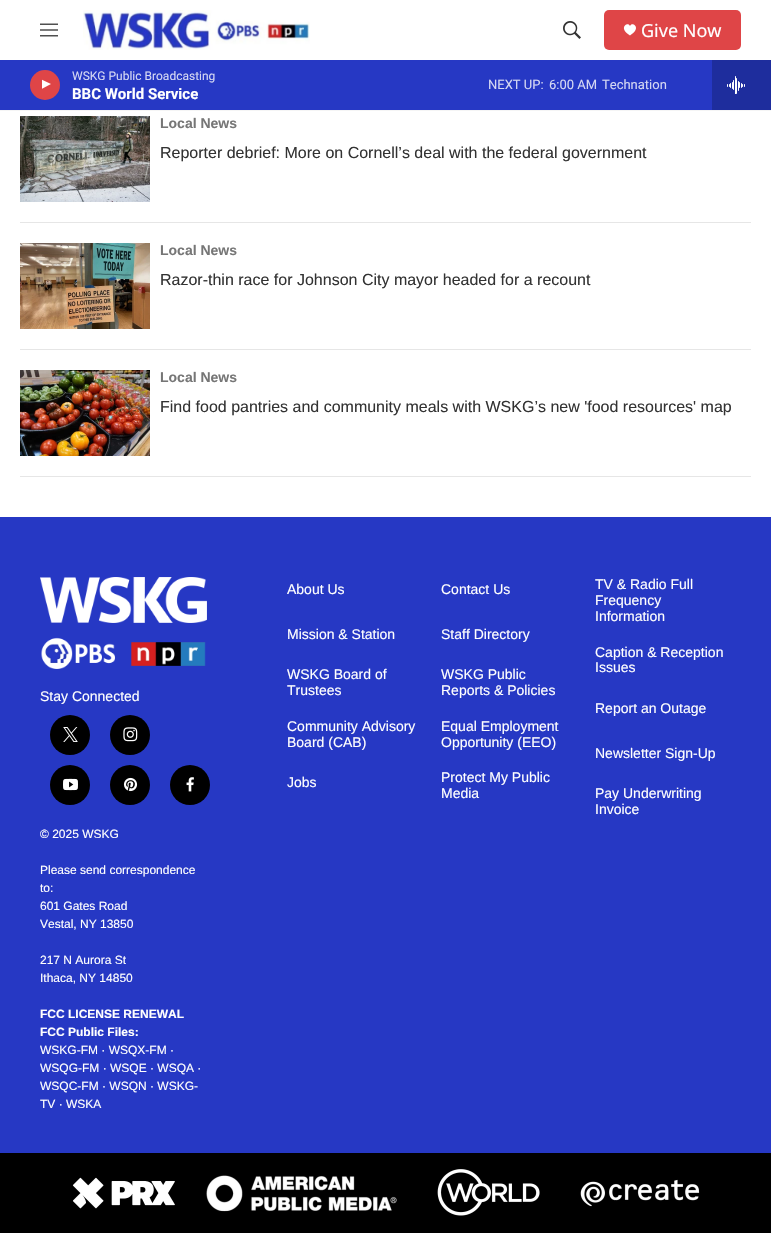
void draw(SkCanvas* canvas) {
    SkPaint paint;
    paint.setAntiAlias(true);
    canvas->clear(0xFFFFFFFF);
    paint.setColor(0xFFF5F5F5);
    canvas->drawRect(SkRect::MakeXYWH(0, 110, 771, 1), paint);
    canvas->drawImageRect(SkImages::DeferredFromEncodedData(SkData::MakeFromFileName("img1.png")), SkRect::MakeXYWH(40, 23, 18, 14), SkSamplingOptions());
    canvas->drawImageRect(SkImages::DeferredFromEncodedData(SkData::MakeFromFileName("img2.png")), SkRect::MakeXYWH(83, 10, 227, 40), SkSamplingOptions());
    canvas->drawImageRect(SkImages::DeferredFromEncodedData(SkData::MakeFromFileName("img3.png")), SkRect::MakeXYWH(563, 21, 18, 18), SkSamplingOptions());
    paint.setColor(0xFFDF4547);
    canvas->drawRoundRect(SkRect::MakeXYWH(604, 10, 137, 40), 5, 5, paint);
    paint.setColor(0xFFFFFFFF);
    canvas->drawPath(SkPathBuilder().moveTo(630, 26).cubicTo(628, 21, 617.5f, 28, 630, 35.5f).cubicTo(642.5f, 28, 632, 21, 630, 26).close().detach(), paint);
    SkFont font1(fontMgr->matchFamilyStyle("Noto Sans", SkFontStyle::Normal()), 18);
    font1.setSubpixel(true);
    canvas->drawString("Give Now", 641, 37, font1, paint);
    paint.setColor(0xFF2638C4);
    canvas->drawRect(SkRect::MakeXYWH(0, 60, 712, 50), paint);
    paint.setColor(0xFFDF4547);
    canvas->drawCircle(45, 85, 15, paint);
    canvas->save();
    canvas->clipRect(SkRect::MakeXYWH(42, 78, 12, 15));
    paint.setColor(0xFFFFFFFF);
    canvas->drawPath(SkPathBuilder().moveTo(41.5f, 79.5f).lineTo(51, 84).lineTo(41.5f, 89).close().detach(), paint);
    canvas->restore();
    SkFont font2(fontMgr->matchFamilyStyle("Roboto", SkFontStyle::Normal()), 12);
    font2.setSubpixel(true);
    paint.setColor(0xFFD4D7F3);
    canvas->drawString("WSKG Public Broadcasting", 72, 80, font2, paint);
    SkFont font3(fontMgr->matchFamilyStyle("Roboto", SkFontStyle::Bold()), 15);
    font3.setSubpixel(true);
    paint.setColor(0xFFFFFFFF);
    canvas->drawString("BBC World Service", 72, 99, font3, paint);
    SkFont font4(fontMgr->matchFamilyStyle("Roboto", SkFontStyle::Normal()), 13);
    font4.setSubpixel(true);
    paint.setColor(0xFFD4D7F3);
    canvas->drawString("NEXT UP:", 488, 89, font4, paint);
    canvas->drawString("6:00 AM", 549, 89, font4, paint);
    canvas->drawString("Technation", 602, 89, font4, paint);
    paint.setColor(0xFF1E2D9D);
    canvas->drawRect(SkRect::MakeXYWH(712, 60, 59, 50), paint);
    canvas->drawImageRect(SkImages::DeferredFromEncodedData(SkData::MakeFromFileName("img4.png")), SkRect::MakeXYWH(727, 76, 18, 18), SkSamplingOptions());
    paint.setColor(0xFFE6E6E6);
    canvas->drawRect(SkRect::MakeXYWH(20, 222, 731, 1), paint);
    canvas->drawImageRect(SkImages::DeferredFromEncodedData(SkData::MakeFromFileName("img5.png")), SkRect::MakeXYWH(20, 116, 130, 86), SkSamplingOptions());
    SkFont font5(fontMgr->matchFamilyStyle("Liberation Sans", SkFontStyle::Bold()), 14);
    font5.setSubpixel(true);
    paint.setColor(0xFF767676);
    canvas->drawString("Local News", 160, 128, font5, paint);
    SkFont font6(fontMgr->matchFamilyStyle("Liberation Sans", SkFontStyle::Normal()), 16);
    font6.setSubpixel(true);
    paint.setColor(0xFF333333);
    canvas->drawString("Reporter debrief: More on Cornell’s deal with the federal government", 160, 158, font6, paint);
    paint.setColor(0xFFE6E6E6);
    canvas->drawRect(SkRect::MakeXYWH(20, 349, 731, 1), paint);
    canvas->drawImageRect(SkImages::DeferredFromEncodedData(SkData::MakeFromFileName("img6.png")), SkRect::MakeXYWH(20, 243, 130, 86), SkSamplingOptions());
    paint.setColor(0xFF767676);
    canvas->drawString("Local News", 160, 255, font5, paint);
    paint.setColor(0xFF333333);
    canvas->drawString("Razor-thin race for Johnson City mayor headed for a recount", 160, 285, font6, paint);
    paint.setColor(0xFFE6E6E6);
    canvas->drawRect(SkRect::MakeXYWH(20, 476, 731, 1), paint);
    canvas->drawImageRect(SkImages::DeferredFromEncodedData(SkData::MakeFromFileName("img7.png")), SkRect::MakeXYWH(20, 370, 130, 86), SkSamplingOptions());
    paint.setColor(0xFF767676);
    canvas->drawString("Local News", 160, 382, font5, paint);
    paint.setColor(0xFF333333);
    canvas->drawString("Find food pantries and community meals with WSKG’s new 'food resources' map", 160, 412, font6, paint);
    paint.setColor(0xFF2638C4);
    canvas->drawRect(SkRect::MakeXYWH(0, 517, 771, 636), paint);
    canvas->drawImageRect(SkImages::DeferredFromEncodedData(SkData::MakeFromFileName("img8.png")), SkRect::MakeXYWH(40, 577, 167, 92), SkSamplingOptions());
    SkFont font7(fontMgr->matchFamilyStyle("Liberation Sans", SkFontStyle::Normal()), 14);
    font7.setSubpixel(true);
    paint.setColor(0xFFFFFFFF);
    canvas->drawString("Stay Connected", 40, 701, font7, paint);
    paint.setColor(0xFF000000);
    canvas->drawCircle(70, 735, 20, paint);
    canvas->drawImageRect(SkImages::DeferredFromEncodedData(SkData::MakeFromFileName("img9.png")), SkRect::MakeXYWH(63, 727, 15, 15), SkSamplingOptions());
    canvas->drawCircle(130, 735, 20, paint);
    canvas->drawImageRect(SkImages::DeferredFromEncodedData(SkData::MakeFromFileName("img10.png")), SkRect::MakeXYWH(123, 727, 15, 15), SkSamplingOptions());
    canvas->drawCircle(70, 785, 20, paint);
    canvas->drawImageRect(SkImages::DeferredFromEncodedData(SkData::MakeFromFileName("img11.png")), SkRect::MakeXYWH(63, 778, 15, 13), SkSamplingOptions());
    canvas->drawCircle(130, 785, 20, paint);
    canvas->drawImageRect(SkImages::DeferredFromEncodedData(SkData::MakeFromFileName("img12.png")), SkRect::MakeXYWH(123, 777, 15, 15), SkSamplingOptions());
    canvas->drawCircle(190, 785, 20, paint);
    canvas->drawImageRect(SkImages::DeferredFromEncodedData(SkData::MakeFromFileName("img13.png")), SkRect::MakeXYWH(186, 777, 8, 15), SkSamplingOptions());
    SkFont font8(fontMgr->matchFamilyStyle("Liberation Sans", SkFontStyle::Normal()), 12);
    font8.setSubpixel(true);
    paint.setColor(0xFFFFFFFF);
    canvas->drawString("© 2025 WSKG", 40, 838, font8, paint);
    canvas->drawString("Please send correspondence", 40, 874, font8, paint);
    canvas->drawString("to:", 40, 892, font8, paint);
    canvas->drawString("601 Gates Road", 40, 910, font8, paint);
    canvas->drawString("Vestal, NY 13850", 40, 928, font8, paint);
    canvas->drawString("217 N Aurora St", 40, 964, font8, paint);
    canvas->drawString("Ithaca, NY 14850", 40, 982, font8, paint);
    SkFont font9(fontMgr->matchFamilyStyle("Liberation Sans", SkFontStyle::Bold()), 12);
    font9.setSubpixel(true);
    canvas->drawString("FCC LICENSE RENEWAL", 40, 1018, font9, paint);
    canvas->drawString("FCC Public Files:", 40, 1036, font9, paint);
    canvas->drawString("WSKG-FM · WSQX-FM ·", 40, 1054, font8, paint);
    canvas->drawString("WSQG-FM · WSQE · WSQA ·", 40, 1072, font8, paint);
    canvas->drawString("WSQC-FM · WSQN · WSKG-", 40, 1090, font8, paint);
    canvas->drawString("TV · WSKA", 40, 1108, font8, paint);
    canvas->drawString("About Us", 287, 594, font7, paint);
    canvas->drawString("Contact Us", 441, 594, font7, paint);
    canvas->drawString("TV & Radio Full", 595, 589, font7, paint);
    canvas->drawString("Frequency", 595, 605, font7, paint);
    canvas->drawString("Information", 595, 621, font7, paint);
    canvas->drawString("Mission & Station", 287, 639, font7, paint);
    canvas->drawString("Staff Directory", 441, 639, font7, paint);
    canvas->drawString("Caption & Reception", 595, 657, font7, paint);
    canvas->drawString("Issues", 595, 672, font7, paint);
    canvas->drawString("WSKG Board of", 287, 679, font7, paint);
    canvas->drawString("Trustees", 287, 695, font7, paint);
    canvas->drawString("WSKG Public", 441, 679, font7, paint);
    canvas->drawString("Reports & Policies", 441, 695, font7, paint);
    canvas->drawString("Report an Outage", 595, 713, font7, paint);
    canvas->drawString("Community Advisory", 287, 731, font7, paint);
    canvas->drawString("Board (CAB)", 287, 747, font7, paint);
    canvas->drawString("Equal Employment", 441, 731, font7, paint);
    canvas->drawString("Opportunity (EEO)", 441, 747, font7, paint);
    canvas->drawString("Newsletter Sign-Up", 595, 758, font7, paint);
    canvas->drawString("Jobs", 287, 787, font7, paint);
    canvas->drawString("Protect My Public", 441, 782, font7, paint);
    canvas->drawString("Media", 441, 798, font7, paint);
    canvas->drawString("Pay Underwriting", 595, 798, font7, paint);
    canvas->drawString("Invoice", 595, 814, font7, paint);
    paint.setColor(0xFF000000);
    canvas->drawRect(SkRect::MakeXYWH(0, 1153, 771, 80), paint);
    canvas->drawImageRect(SkImages::DeferredFromEncodedData(SkData::MakeFromFileName("img14.png")), SkRect::MakeXYWH(72, 1177, 103, 32), SkSamplingOptions());
    canvas->drawImageRect(SkImages::DeferredFromEncodedData(SkData::MakeFromFileName("img15.png")), SkRect::MakeXYWH(206, 1175, 191, 37), SkSamplingOptions());
    canvas->drawImageRect(SkImages::DeferredFromEncodedData(SkData::MakeFromFileName("img16.png")), SkRect::MakeXYWH(437, 1169, 103, 47), SkSamplingOptions());
    canvas->drawImageRect(SkImages::DeferredFromEncodedData(SkData::MakeFromFileName("img17.png")), SkRect::MakeXYWH(580, 1179, 120, 28), SkSamplingOptions());
}
